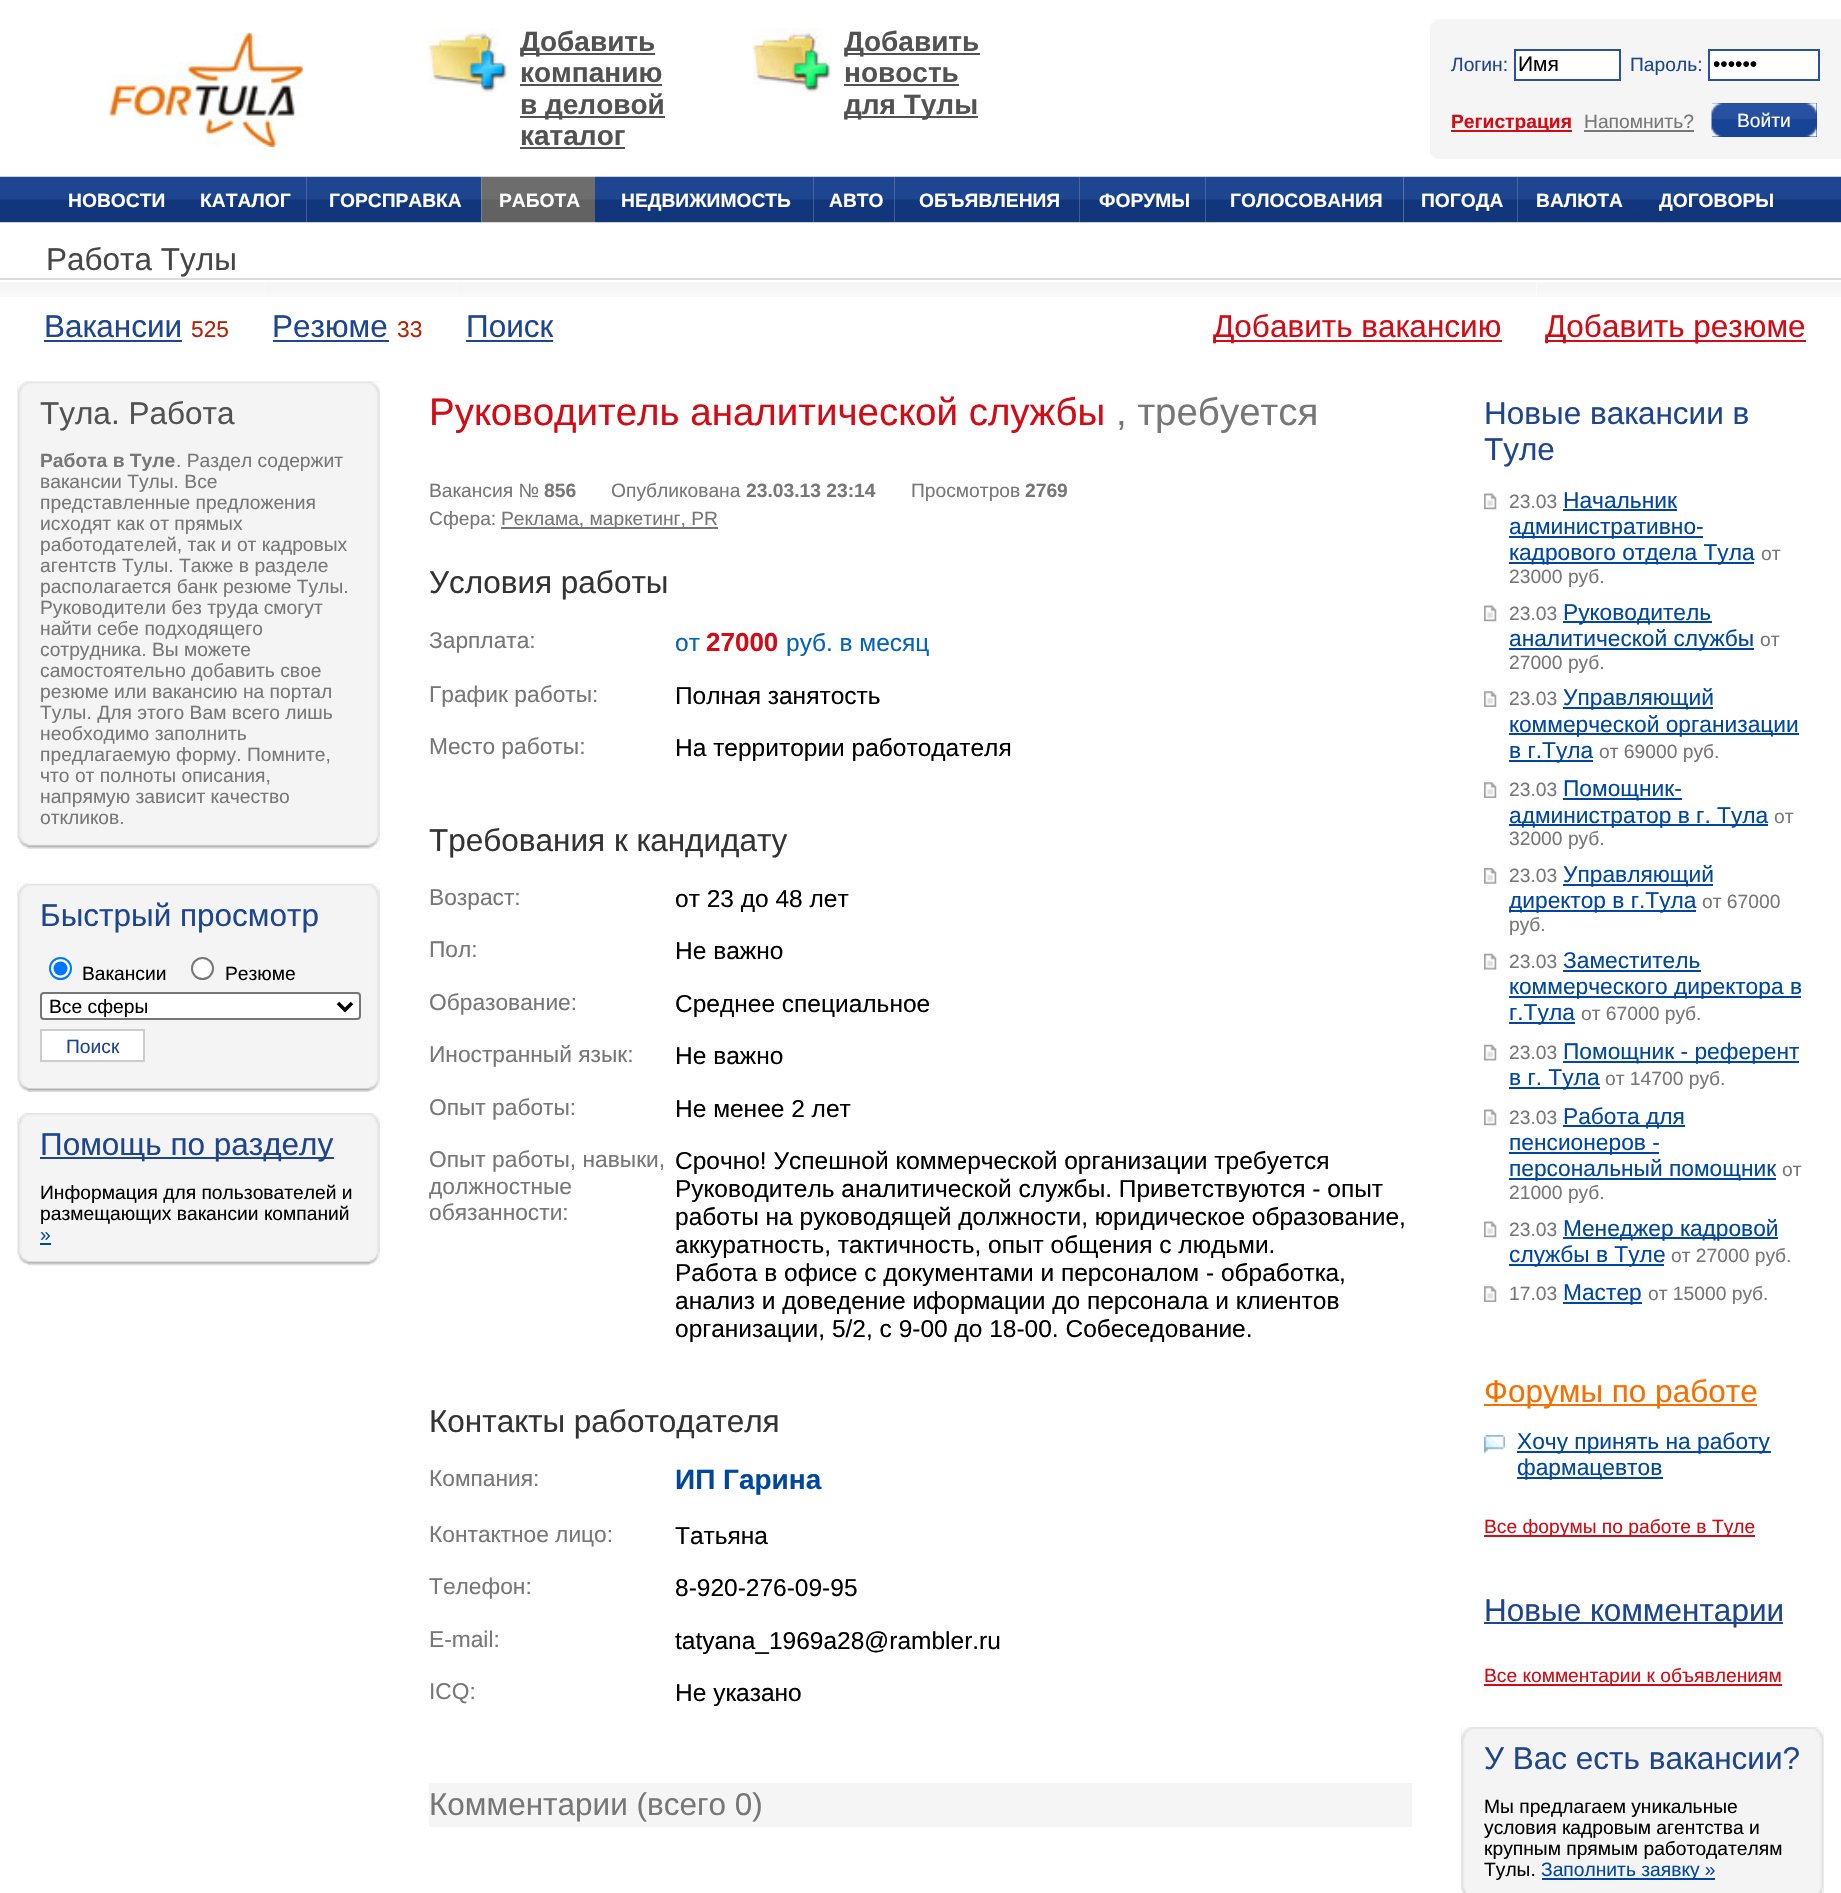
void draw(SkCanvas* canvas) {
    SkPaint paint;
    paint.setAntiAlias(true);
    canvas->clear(0xFFFFFFFF);
    canvas->drawImageRect(SkImages::DeferredFromEncodedData(SkData::MakeFromFileName("img1.png")), SkRect::MakeXYWH(108, 33, 195, 114), SkSamplingOptions());
    canvas->drawImageRect(SkImages::DeferredFromEncodedData(SkData::MakeFromFileName("img2.png")), SkRect::MakeXYWH(428, 28, 80, 65), SkSamplingOptions());
    paint.setColor(0xFF525252);
    canvas->drawRect(SkRect::MakeXYWH(520, 53, 135, 2), paint);
    SkFont font1(fontMgr->matchFamilyStyle("Liberation Sans", SkFontStyle::Bold()), 28);
    font1.setSubpixel(true);
    canvas->drawString("Добавить", 520, 51, font1, paint);
    canvas->drawString("компанию", 520, 82, font1, paint);
    canvas->drawRect(SkRect::MakeXYWH(520, 84, 142, 2), paint);
    canvas->drawRect(SkRect::MakeXYWH(520, 116, 145, 2), paint);
    canvas->drawString("в деловой", 520, 114, font1, paint);
    canvas->drawString("каталог", 520, 145, font1, paint);
    canvas->drawRect(SkRect::MakeXYWH(520, 147, 105, 2), paint);
    canvas->drawImageRect(SkImages::DeferredFromEncodedData(SkData::MakeFromFileName("img3.png")), SkRect::MakeXYWH(752, 28, 80, 65), SkSamplingOptions());
    canvas->drawRect(SkRect::MakeXYWH(844, 53, 136, 2), paint);
    canvas->drawString("Добавить", 844, 51, font1, paint);
    canvas->drawString("новость", 844, 82, font1, paint);
    canvas->drawRect(SkRect::MakeXYWH(844, 84, 115, 2), paint);
    canvas->drawRect(SkRect::MakeXYWH(844, 116, 134, 2), paint);
    canvas->drawString("для Тулы", 844, 114, font1, paint);
    paint.setColor(0xFFF5F5F5);
    canvas->drawRect(SkRect::MakeXYWH(1430, 19, 411, 140), paint);
    canvas->drawImageRect(SkImages::DeferredFromEncodedData(SkData::MakeFromFileName("img4.png")), SkRect::MakeXYWH(1430, 19, 6, 6), SkSamplingOptions());
    SkFont font2(fontMgr->matchFamilyStyle("Liberation Sans", SkFontStyle::Normal()), 19.25f);
    font2.setSubpixel(true);
    paint.setColor(0xFF1E458F);
    canvas->drawString("Логин:", 1451, 71, font2, paint);
    paint.setColor(0xFFFFFFFF);
    canvas->drawRect(SkRect::MakeXYWH(1515, 50, 105, 30), paint);
    paint.setStyle(SkPaint::kStroke_Style);
    paint.setStrokeWidth(2);
    paint.setColor(0xFF29509A);
    canvas->drawRect(SkRect::MakeXYWH(1515, 50, 105, 30), paint);
    SkFont font3(fontMgr->matchFamilyStyle("Liberation Sans", SkFontStyle::Normal()), 21);
    font3.setSubpixel(true);
    paint.setStyle(SkPaint::kFill_Style);
    paint.setColor(0xFF000000);
    canvas->drawString("Имя", 1518, 71, font3, paint);
    paint.setColor(0xFF1E458F);
    canvas->drawString("Пароль:", 1630, 71, font2, paint);
    paint.setColor(0xFFFFFFFF);
    canvas->drawRect(SkRect::MakeXYWH(1709, 50, 110, 30), paint);
    paint.setStyle(SkPaint::kStroke_Style);
    paint.setColor(0xFF29509A);
    canvas->drawRect(SkRect::MakeXYWH(1709, 50, 110, 30), paint);
    paint.setStyle(SkPaint::kFill_Style);
    paint.setColor(0xFF000000);
    canvas->drawString("••••••", 1713, 71, font3, paint);
    paint.setColor(0xFFD30B15);
    canvas->drawRect(SkRect::MakeXYWH(1451, 130, 121, 2), paint);
    SkFont font4(fontMgr->matchFamilyStyle("Liberation Sans", SkFontStyle::Bold()), 19.25f);
    font4.setSubpixel(true);
    canvas->drawString("Регистрация", 1451, 128, font4, paint);
    paint.setColor(0xFF777777);
    canvas->drawString("Напомнить?", 1584, 128, font2, paint);
    canvas->drawRect(SkRect::MakeXYWH(1584, 130, 110, 2), paint);
    paint.setColor(0xFF184497);
    canvas->drawRect(SkRect::MakeXYWH(1712, 103, 105, 34), paint);
    canvas->drawImageRect(SkImages::DeferredFromEncodedData(SkData::MakeFromFileName("img5.png")), SkRect::MakeXYWH(1711, 103, 106, 34), SkSamplingOptions());
    paint.setColor(0xFFFFFFFF);
    canvas->drawString("Войти", 1737, 127, font2, paint);
    canvas->drawImageRect(SkImages::DeferredFromEncodedData(SkData::MakeFromFileName("img6.png")), SkRect::MakeXYWH(1430, 153, 6, 6), SkSamplingOptions());
    canvas->drawImageRect(SkImages::DeferredFromEncodedData(SkData::MakeFromFileName("img7.png")), SkRect::MakeXYWH(0, 176, 49, 47), SkSamplingOptions());
    canvas->drawImageRect(SkImages::DeferredFromEncodedData(SkData::MakeFromFileName("img8.png")), SkRect::MakeXYWH(49, 176, 133, 47), SkSamplingOptions());
    canvas->drawString("НОВОСТИ", 68, 207, font4, paint);
    canvas->drawImageRect(SkImages::DeferredFromEncodedData(SkData::MakeFromFileName("img9.png")), SkRect::MakeXYWH(182, 176, 125, 47), SkSamplingOptions());
    canvas->drawString("КАТАЛОГ", 200, 207, font4, paint);
    canvas->drawImageRect(SkImages::DeferredFromEncodedData(SkData::MakeFromFileName("img10.png")), SkRect::MakeXYWH(306, 176, 176, 47), SkSamplingOptions());
    canvas->drawString("ГОРСПРАВКА", 329, 207, font4, paint);
    canvas->drawImageRect(SkImages::DeferredFromEncodedData(SkData::MakeFromFileName("img11.png")), SkRect::MakeXYWH(481, 176, 114, 47), SkSamplingOptions());
    canvas->drawString("РАБОТА", 499, 207, font4, paint);
    canvas->drawImageRect(SkImages::DeferredFromEncodedData(SkData::MakeFromFileName("img12.png")), SkRect::MakeXYWH(595, 176, 219, 47), SkSamplingOptions());
    canvas->drawString("НЕДВИЖИМОСТЬ", 621, 207, font4, paint);
    canvas->drawImageRect(SkImages::DeferredFromEncodedData(SkData::MakeFromFileName("img13.png")), SkRect::MakeXYWH(813, 176, 82, 47), SkSamplingOptions());
    canvas->drawString("АВТО", 829, 207, font4, paint);
    canvas->drawImageRect(SkImages::DeferredFromEncodedData(SkData::MakeFromFileName("img14.png")), SkRect::MakeXYWH(894, 176, 186, 47), SkSamplingOptions());
    canvas->drawString("ОБЪЯВЛЕНИЯ", 919, 207, font4, paint);
    canvas->drawImageRect(SkImages::DeferredFromEncodedData(SkData::MakeFromFileName("img15.png")), SkRect::MakeXYWH(1079, 176, 127, 47), SkSamplingOptions());
    canvas->drawString("ФОРУМЫ", 1099, 207, font4, paint);
    canvas->drawImageRect(SkImages::DeferredFromEncodedData(SkData::MakeFromFileName("img16.png")), SkRect::MakeXYWH(1205, 176, 199, 47), SkSamplingOptions());
    canvas->drawString("ГОЛОСОВАНИЯ", 1230, 207, font4, paint);
    canvas->drawImageRect(SkImages::DeferredFromEncodedData(SkData::MakeFromFileName("img17.png")), SkRect::MakeXYWH(1403, 176, 115, 47), SkSamplingOptions());
    canvas->drawString("ПОГОДА", 1421, 207, font4, paint);
    canvas->drawImageRect(SkImages::DeferredFromEncodedData(SkData::MakeFromFileName("img18.png")), SkRect::MakeXYWH(1517, 176, 121, 47), SkSamplingOptions());
    canvas->drawString("ВАЛЮТА", 1536, 207, font4, paint);
    canvas->drawImageRect(SkImages::DeferredFromEncodedData(SkData::MakeFromFileName("img19.png")), SkRect::MakeXYWH(1638, 176, 154, 47), SkSamplingOptions());
    canvas->drawString("ДОГОВОРЫ", 1659, 207, font4, paint);
    canvas->drawImageRect(SkImages::DeferredFromEncodedData(SkData::MakeFromFileName("img7.png")), SkRect::MakeXYWH(1792, 176, 49, 47), SkSamplingOptions());
    paint.setColor(0xFFDDDDDD);
    canvas->drawRect(SkRect::MakeXYWH(0, 278, 1841, 2), paint);
    SkFont font5(fontMgr->matchFamilyStyle("Liberation Sans", SkFontStyle::Normal()), 31.5f);
    font5.setSubpixel(true);
    paint.setColor(0xFF464646);
    canvas->drawString("Работа Тулы", 46, 270, font5, paint);
    canvas->drawImageRect(SkImages::DeferredFromEncodedData(SkData::MakeFromFileName("img20.png")), SkRect::MakeXYWH(0, 282, 35, 15), SkSamplingOptions());
    canvas->drawImageRect(SkImages::DeferredFromEncodedData(SkData::MakeFromFileName("img21.png")), SkRect::MakeXYWH(588, 282, 616, 15), SkSamplingOptions());
    canvas->drawImageRect(SkImages::DeferredFromEncodedData(SkData::MakeFromFileName("img22.png")), SkRect::MakeXYWH(35, 282, 229, 15), SkSamplingOptions());
    paint.setColor(0xFF1E458F);
    canvas->drawString("Вакансии", 44, 337, font5, paint);
    canvas->drawRect(SkRect::MakeXYWH(44, 340, 138, 2), paint);
    SkFont font6(fontMgr->matchFamilyStyle("Liberation Sans", SkFontStyle::Normal()), 22.75f);
    font6.setSubpixel(true);
    paint.setColor(0xFFB72204);
    canvas->drawString("525", 191, 337, font6, paint);
    canvas->drawImageRect(SkImages::DeferredFromEncodedData(SkData::MakeFromFileName("img23.png")), SkRect::MakeXYWH(264, 282, 193, 15), SkSamplingOptions());
    paint.setColor(0xFF1E458F);
    canvas->drawString("Резюме", 272, 337, font5, paint);
    canvas->drawRect(SkRect::MakeXYWH(273, 340, 116, 2), paint);
    paint.setColor(0xFFB72204);
    canvas->drawString("33", 397, 337, font6, paint);
    canvas->drawImageRect(SkImages::DeferredFromEncodedData(SkData::MakeFromFileName("img24.png")), SkRect::MakeXYWH(457, 282, 131, 15), SkSamplingOptions());
    paint.setColor(0xFF1E458F);
    canvas->drawString("Поиск", 466, 337, font5, paint);
    canvas->drawRect(SkRect::MakeXYWH(466, 340, 87, 2), paint);
    canvas->drawImageRect(SkImages::DeferredFromEncodedData(SkData::MakeFromFileName("img25.png")), SkRect::MakeXYWH(1204, 282, 333, 15), SkSamplingOptions());
    paint.setColor(0xFFD30B15);
    canvas->drawRect(SkRect::MakeXYWH(1213, 340, 289, 2), paint);
    canvas->drawString("Добавить вакансию", 1213, 337, font5, paint);
    canvas->drawImageRect(SkImages::DeferredFromEncodedData(SkData::MakeFromFileName("img26.png")), SkRect::MakeXYWH(1537, 282, 304, 15), SkSamplingOptions());
    canvas->drawRect(SkRect::MakeXYWH(1545, 340, 261, 2), paint);
    canvas->drawString("Добавить резюме", 1545, 337, font5, paint);
    paint.setColor(0xFFF4F4F4);
    canvas->drawRect(SkRect::MakeXYWH(18, 382, 362, 467), paint);
    canvas->drawImageRect(SkImages::DeferredFromEncodedData(SkData::MakeFromFileName("img27.png")), SkRect::MakeXYWH(17, 381, 11, 468), SkSamplingOptions());
    canvas->drawImageRect(SkImages::DeferredFromEncodedData(SkData::MakeFromFileName("img28.png")), SkRect::MakeXYWH(17, 381, 363, 11), SkSamplingOptions());
    canvas->drawImageRect(SkImages::DeferredFromEncodedData(SkData::MakeFromFileName("img29.png")), SkRect::MakeXYWH(369, 381, 11, 468), SkSamplingOptions());
    canvas->drawImageRect(SkImages::DeferredFromEncodedData(SkData::MakeFromFileName("img30.png")), SkRect::MakeXYWH(28, 836, 352, 13), SkSamplingOptions());
    paint.setColor(0xFF525252);
    canvas->drawString("Тула. Работа", 40, 424, font5, paint);
    paint.setColor(0xFF777777);
    canvas->drawString("Работа в Туле", 40, 467, font4, paint);
    canvas->drawString(". Раздел содержит", 176, 467, font2, paint);
    canvas->drawString("вакансии Тулы. Все", 40, 488, font2, paint);
    canvas->drawString("представленные предложения", 40, 509, font2, paint);
    canvas->drawString("исходят как от прямых", 40, 530, font2, paint);
    canvas->drawString("работодателей, так и от кадровых", 40, 551, font2, paint);
    canvas->drawString("агентств Тулы. Также в разделе", 40, 572, font2, paint);
    canvas->drawString("располагается банк резюме Тулы.", 40, 593, font2, paint);
    canvas->drawString("Руководители без труда смогут", 40, 614, font2, paint);
    canvas->drawString("найти себе подходящего", 40, 635, font2, paint);
    canvas->drawString("сотрудника. Вы можете", 40, 656, font2, paint);
    canvas->drawString("самостоятельно добавить свое", 40, 677, font2, paint);
    canvas->drawString("резюме или вакансию на портал", 40, 698, font2, paint);
    canvas->drawString("Тулы. Для этого Вам всего лишь", 40, 719, font2, paint);
    canvas->drawString("необходимо заполнить", 40, 740, font2, paint);
    canvas->drawString("предлагаемую форму. Помните,", 40, 761, font2, paint);
    canvas->drawString("что от полноты описания,", 40, 782, font2, paint);
    canvas->drawString("напрямую зависит качество", 40, 803, font2, paint);
    canvas->drawString("откликов.", 40, 824, font2, paint);
    paint.setColor(0xFFF4F4F4);
    canvas->drawRect(SkRect::MakeXYWH(28, 884, 352, 208), paint);
    canvas->drawImageRect(SkImages::DeferredFromEncodedData(SkData::MakeFromFileName("img31.png")), SkRect::MakeXYWH(17, 883, 11, 209), SkSamplingOptions());
    canvas->drawImageRect(SkImages::DeferredFromEncodedData(SkData::MakeFromFileName("img32.png")), SkRect::MakeXYWH(17, 883, 363, 11), SkSamplingOptions());
    canvas->drawImageRect(SkImages::DeferredFromEncodedData(SkData::MakeFromFileName("img33.png")), SkRect::MakeXYWH(370, 883, 10, 209), SkSamplingOptions());
    canvas->drawImageRect(SkImages::DeferredFromEncodedData(SkData::MakeFromFileName("img34.png")), SkRect::MakeXYWH(28, 1080, 352, 12), SkSamplingOptions());
    paint.setColor(0xFF1E458F);
    canvas->drawString("Быстрый просмотр", 40, 926, font5, paint);
    paint.setColor(0xFFFFFFFF);
    canvas->drawCircle(60.5f, 968.5f, 10.5f, paint);
    paint.setStyle(SkPaint::kStroke_Style);
    paint.setColor(0xFF0075FF);
    canvas->drawCircle(60.5f, 968.5f, 10.5f, paint);
    paint.setStyle(SkPaint::kFill_Style);
    canvas->drawCircle(60.5f, 968.5f, 7, paint);
    paint.setColor(0xFF000000);
    canvas->drawString("Вакансии", 82, 980, font2, paint);
    paint.setColor(0xFFFFFFFF);
    canvas->drawCircle(202.5f, 968.5f, 10.5f, paint);
    paint.setStyle(SkPaint::kStroke_Style);
    paint.setColor(0xFF767676);
    canvas->drawCircle(202.5f, 968.5f, 10.5f, paint);
    paint.setStyle(SkPaint::kFill_Style);
    paint.setColor(0xFF000000);
    canvas->drawString("Резюме", 225, 980, font2, paint);
    paint.setColor(0xFFFFFFFF);
    canvas->drawRoundRect(SkRect::MakeXYWH(41, 993, 319, 26), 3, 3, paint);
    paint.setStyle(SkPaint::kStroke_Style);
    paint.setColor(0xFF767676);
    canvas->drawRoundRect(SkRect::MakeXYWH(41, 993, 319, 26), 3, 3, paint);
    paint.setStrokeWidth(3.5f);
    paint.setColor(0xFF000000);
    canvas->drawPath(SkPathBuilder().moveTo(338, 1003).lineTo(345, 1010).lineTo(352, 1003).detach(), paint);
    paint.setStyle(SkPaint::kFill_Style);
    canvas->drawString("Все сферы", 49, 1013, font2, paint);
    paint.setColor(0xFFFFFFFF);
    canvas->drawRect(SkRect::MakeXYWH(41, 1030, 103, 31), paint);
    paint.setStyle(SkPaint::kStroke_Style);
    paint.setStrokeWidth(2);
    paint.setColor(0xFFCCCCCC);
    canvas->drawRect(SkRect::MakeXYWH(41, 1030, 103, 31), paint);
    paint.setStyle(SkPaint::kFill_Style);
    paint.setColor(0xFF1E458F);
    canvas->drawString("Поиск", 66, 1053, font2, paint);
    paint.setColor(0xFFF4F4F4);
    canvas->drawRect(SkRect::MakeXYWH(28, 1113, 352, 152), paint);
    canvas->drawImageRect(SkImages::DeferredFromEncodedData(SkData::MakeFromFileName("img35.png")), SkRect::MakeXYWH(17, 1113, 11, 152), SkSamplingOptions());
    canvas->drawImageRect(SkImages::DeferredFromEncodedData(SkData::MakeFromFileName("img36.png")), SkRect::MakeXYWH(17, 1113, 363, 11), SkSamplingOptions());
    canvas->drawImageRect(SkImages::DeferredFromEncodedData(SkData::MakeFromFileName("img37.png")), SkRect::MakeXYWH(370, 1113, 10, 153), SkSamplingOptions());
    canvas->drawImageRect(SkImages::DeferredFromEncodedData(SkData::MakeFromFileName("img38.png")), SkRect::MakeXYWH(28, 1253, 352, 13), SkSamplingOptions());
    paint.setColor(0xFF1E458F);
    canvas->drawRect(SkRect::MakeXYWH(40, 1157, 294, 2), paint);
    canvas->drawString("Помощь по разделу", 40, 1155, font5, paint);
    paint.setColor(0xFF000000);
    canvas->drawString("Информация для пользователей и", 40, 1199, font2, paint);
    canvas->drawString("размещающих вакансии компаний", 40, 1220, font2, paint);
    paint.setColor(0xFF0047A2);
    canvas->drawString("»", 40, 1241, font2, paint);
    canvas->drawRect(SkRect::MakeXYWH(40, 1243, 11, 2), paint);
    SkFont font7(fontMgr->matchFamilyStyle("Liberation Sans", SkFontStyle::Normal()), 38.5f);
    font7.setSubpixel(true);
    paint.setColor(0xFFD30B15);
    canvas->drawString("Руководитель аналитической службы", 429, 425, font7, paint);
    paint.setColor(0xFF777777);
    canvas->drawString(", требуется", 1116, 425, font7, paint);
    canvas->drawString("Вакансия №", 429, 497, font2, paint);
    canvas->drawString("856", 544, 497, font4, paint);
    canvas->drawString("Опубликована", 611, 497, font2, paint);
    canvas->drawString("23.03.13 23:14", 746, 497, font4, paint);
    canvas->drawString("Просмотров", 911, 497, font2, paint);
    canvas->drawString("2769", 1025, 497, font4, paint);
    canvas->drawString("Сфера:", 429, 525, font2, paint);
    canvas->drawRect(SkRect::MakeXYWH(501, 527, 217, 2), paint);
    canvas->drawString("Реклама, маркетинг, PR", 501, 525, font2, paint);
    paint.setColor(0xFF333333);
    canvas->drawString("Условия работы", 429, 593, font5, paint);
    paint.setColor(0xFF777777);
    canvas->drawString("Зарплата:", 429, 648, font6, paint);
    SkFont font8(fontMgr->matchFamilyStyle("Liberation Sans", SkFontStyle::Normal()), 24.5f);
    font8.setSubpixel(true);
    paint.setColor(0xFF0463BC);
    canvas->drawString("от", 675, 651, font8, paint);
    SkFont font9(fontMgr->matchFamilyStyle("Liberation Sans", SkFontStyle::Bold()), 26);
    font9.setSubpixel(true);
    paint.setColor(0xFFD30B15);
    canvas->drawString("27000", 706, 651, font9, paint);
    paint.setColor(0xFF0463BC);
    canvas->drawString("руб. в месяц", 786, 651, font8, paint);
    paint.setColor(0xFF777777);
    canvas->drawString("График работы:", 429, 702, font6, paint);
    paint.setColor(0xFF000000);
    canvas->drawString("Полная занятость", 675, 704, font8, paint);
    paint.setColor(0xFF777777);
    canvas->drawString("Место работы:", 429, 754, font6, paint);
    paint.setColor(0xFF000000);
    canvas->drawString("На территории работодателя", 675, 756, font8, paint);
    paint.setColor(0xFF333333);
    canvas->drawString("Требования к кандидату", 429, 851, font5, paint);
    paint.setColor(0xFF777777);
    canvas->drawString("Возраст:", 429, 905, font6, paint);
    paint.setColor(0xFF000000);
    canvas->drawString("от 23 до 48 лет", 675, 907, font8, paint);
    paint.setColor(0xFF777777);
    canvas->drawString("Пол:", 429, 957, font6, paint);
    paint.setColor(0xFF000000);
    canvas->drawString("Не важно", 675, 959, font8, paint);
    paint.setColor(0xFF777777);
    canvas->drawString("Образование:", 429, 1010, font6, paint);
    paint.setColor(0xFF000000);
    canvas->drawString("Среднее специальное", 675, 1012, font8, paint);
    paint.setColor(0xFF777777);
    canvas->drawString("Иностранный язык:", 429, 1062, font6, paint);
    paint.setColor(0xFF000000);
    canvas->drawString("Не важно", 675, 1064, font8, paint);
    paint.setColor(0xFF777777);
    canvas->drawString("Опыт работы:", 429, 1115, font6, paint);
    paint.setColor(0xFF000000);
    canvas->drawString("Не менее 2 лет", 675, 1117, font8, paint);
    paint.setColor(0xFF777777);
    canvas->drawString("Опыт работы, навыки,", 429, 1167, font6, paint);
    canvas->drawString("должностные", 429, 1194, font6, paint);
    canvas->drawString("обязанности:", 429, 1220, font6, paint);
    paint.setColor(0xFF000000);
    canvas->drawString("Срочно! Успешной коммерческой организации требуется", 675, 1169, font8, paint);
    canvas->drawString("Руководитель аналитической службы. Приветствуются - опыт", 675, 1197, font8, paint);
    canvas->drawString("работы на руководящей должности, юридическое образование,", 675, 1225, font8, paint);
    canvas->drawString("аккуратность, тактичность, опыт общения с людьми.", 675, 1253, font8, paint);
    canvas->drawString("Работа в офисе с документами и персоналом - обработка,", 675, 1281, font8, paint);
    canvas->drawString("анализ и доведение иформации до персонала и клиентов", 675, 1309, font8, paint);
    canvas->drawString("организации, 5/2, с 9-00 до 18-00. Собеседование.", 675, 1337, font8, paint);
    paint.setColor(0xFF333333);
    canvas->drawString("Контакты работодателя", 429, 1432, font5, paint);
    paint.setColor(0xFF777777);
    canvas->drawString("Компания:", 429, 1486, font6, paint);
    paint.setColor(0xFF0047A2);
    canvas->drawString("ИП Гарина", 675, 1489, font1, paint);
    paint.setColor(0xFF777777);
    canvas->drawString("Контактное лицо:", 429, 1542, font6, paint);
    paint.setColor(0xFF000000);
    canvas->drawString("Татьяна", 675, 1544, font8, paint);
    paint.setColor(0xFF777777);
    canvas->drawString("Телефон:", 429, 1594, font6, paint);
    paint.setColor(0xFF000000);
    canvas->drawString("8-920-276-09-95", 675, 1596, font8, paint);
    paint.setColor(0xFF777777);
    canvas->drawString("E-mail:", 429, 1647, font6, paint);
    paint.setColor(0xFF000000);
    canvas->drawString("tatyana_1969a28@rambler.ru", 675, 1649, font8, paint);
    paint.setColor(0xFF777777);
    canvas->drawString("ICQ:", 429, 1699, font6, paint);
    paint.setColor(0xFF000000);
    canvas->drawString("Не указано", 675, 1701, font8, paint);
    paint.setColor(0xFFF5F5F5);
    canvas->drawRect(SkRect::MakeXYWH(429, 1783, 983, 44), paint);
    paint.setColor(0xFF777777);
    canvas->drawString("Комментарии (всего 0)", 429, 1815, font5, paint);
    paint.setColor(0xFF1E458F);
    canvas->drawString("Новые вакансии в", 1484, 424, font5, paint);
    canvas->drawString("Туле", 1484, 460, font5, paint);
    canvas->drawImageRect(SkImages::DeferredFromEncodedData(SkData::MakeFromFileName("img39.png")), SkRect::MakeXYWH(1484, 493, 13, 17), SkSamplingOptions());
    paint.setColor(0xFF777777);
    canvas->drawString("23.03", 1509, 508, font2, paint);
    paint.setColor(0xFF0047A2);
    canvas->drawString("Начальник", 1563, 508, font6, paint);
    canvas->drawRect(SkRect::MakeXYWH(1563, 509, 114, 2), paint);
    canvas->drawRect(SkRect::MakeXYWH(1509, 536, 194, 2), paint);
    canvas->drawString("административно-", 1509, 534, font6, paint);
    canvas->drawRect(SkRect::MakeXYWH(1509, 562, 245, 2), paint);
    canvas->drawString("кадрового отдела Тула", 1509, 560, font6, paint);
    paint.setColor(0xFF777777);
    canvas->drawString("от", 1761, 560, font2, paint);
    canvas->drawString("23000 руб.", 1509, 583, font2, paint);
    canvas->drawImageRect(SkImages::DeferredFromEncodedData(SkData::MakeFromFileName("img39.png")), SkRect::MakeXYWH(1484, 605, 13, 17), SkSamplingOptions());
    canvas->drawString("23.03", 1509, 620, font2, paint);
    paint.setColor(0xFF0047A2);
    canvas->drawRect(SkRect::MakeXYWH(1563, 621, 149, 2), paint);
    canvas->drawString("Руководитель", 1563, 620, font6, paint);
    canvas->drawRect(SkRect::MakeXYWH(1509, 648, 245, 2), paint);
    canvas->drawString("аналитической службы", 1509, 646, font6, paint);
    paint.setColor(0xFF777777);
    canvas->drawString("от", 1760, 646, font2, paint);
    canvas->drawString("27000 руб.", 1509, 669, font2, paint);
    canvas->drawImageRect(SkImages::DeferredFromEncodedData(SkData::MakeFromFileName("img40.png")), SkRect::MakeXYWH(1484, 691, 13, 16), SkSamplingOptions());
    canvas->drawString("23.03", 1509, 705, font2, paint);
    paint.setColor(0xFF0047A2);
    canvas->drawRect(SkRect::MakeXYWH(1563, 707, 150, 2), paint);
    canvas->drawString("Управляющий", 1563, 705, font6, paint);
    canvas->drawRect(SkRect::MakeXYWH(1509, 733, 290, 2), paint);
    canvas->drawString("коммерческой организации", 1509, 732, font6, paint);
    canvas->drawRect(SkRect::MakeXYWH(1509, 760, 84, 2), paint);
    canvas->drawString("в г.Тула", 1509, 758, font6, paint);
    paint.setColor(0xFF777777);
    canvas->drawString("от 69000 руб.", 1599, 758, font2, paint);
    canvas->drawImageRect(SkImages::DeferredFromEncodedData(SkData::MakeFromFileName("img40.png")), SkRect::MakeXYWH(1484, 782, 13, 16), SkSamplingOptions());
    canvas->drawString("23.03", 1509, 796, font2, paint);
    paint.setColor(0xFF0047A2);
    canvas->drawRect(SkRect::MakeXYWH(1563, 798, 119, 2), paint);
    canvas->drawString("Помощник-", 1563, 796, font6, paint);
    canvas->drawRect(SkRect::MakeXYWH(1509, 824, 259, 2), paint);
    canvas->drawString("администратор в г. Тула", 1509, 823, font6, paint);
    paint.setColor(0xFF777777);
    canvas->drawString("от", 1774, 823, font2, paint);
    canvas->drawString("32000 руб.", 1509, 845, font2, paint);
    canvas->drawImageRect(SkImages::DeferredFromEncodedData(SkData::MakeFromFileName("img41.png")), SkRect::MakeXYWH(1484, 868, 13, 16), SkSamplingOptions());
    canvas->drawString("23.03", 1509, 882, font2, paint);
    paint.setColor(0xFF0047A2);
    canvas->drawRect(SkRect::MakeXYWH(1563, 884, 150, 2), paint);
    canvas->drawString("Управляющий", 1563, 882, font6, paint);
    canvas->drawRect(SkRect::MakeXYWH(1509, 910, 187, 2), paint);
    canvas->drawString("директор в г.Тула", 1509, 908, font6, paint);
    paint.setColor(0xFF777777);
    canvas->drawString("от 67000", 1702, 908, font2, paint);
    canvas->drawString("руб.", 1509, 931, font2, paint);
    canvas->drawImageRect(SkImages::DeferredFromEncodedData(SkData::MakeFromFileName("img42.png")), SkRect::MakeXYWH(1484, 953, 13, 17), SkSamplingOptions());
    canvas->drawString("23.03", 1509, 968, font2, paint);
    paint.setColor(0xFF0047A2);
    canvas->drawString("Заместитель", 1563, 968, font6, paint);
    canvas->drawRect(SkRect::MakeXYWH(1563, 970, 138, 2), paint);
    canvas->drawRect(SkRect::MakeXYWH(1509, 996, 292, 2), paint);
    canvas->drawString("коммерческого директора в", 1509, 994, font6, paint);
    canvas->drawRect(SkRect::MakeXYWH(1509, 1022, 66, 2), paint);
    canvas->drawString("г.Тула", 1509, 1020, font6, paint);
    paint.setColor(0xFF777777);
    canvas->drawString("от 67000 руб.", 1581, 1020, font2, paint);
    canvas->drawImageRect(SkImages::DeferredFromEncodedData(SkData::MakeFromFileName("img42.png")), SkRect::MakeXYWH(1484, 1044, 13, 17), SkSamplingOptions());
    canvas->drawString("23.03", 1509, 1059, font2, paint);
    paint.setColor(0xFF0047A2);
    canvas->drawRect(SkRect::MakeXYWH(1563, 1061, 236, 2), paint);
    canvas->drawString("Помощник - референт", 1563, 1059, font6, paint);
    canvas->drawRect(SkRect::MakeXYWH(1509, 1087, 91, 2), paint);
    canvas->drawString("в г. Тула", 1509, 1085, font6, paint);
    paint.setColor(0xFF777777);
    canvas->drawString("от 14700 руб.", 1605, 1085, font2, paint);
    canvas->drawImageRect(SkImages::DeferredFromEncodedData(SkData::MakeFromFileName("img39.png")), SkRect::MakeXYWH(1484, 1109, 13, 17), SkSamplingOptions());
    canvas->drawString("23.03", 1509, 1124, font2, paint);
    paint.setColor(0xFF0047A2);
    canvas->drawRect(SkRect::MakeXYWH(1563, 1125, 122, 2), paint);
    canvas->drawString("Работа для", 1563, 1124, font6, paint);
    canvas->drawRect(SkRect::MakeXYWH(1509, 1152, 150, 2), paint);
    canvas->drawString("пенсионеров -", 1509, 1150, font6, paint);
    canvas->drawRect(SkRect::MakeXYWH(1509, 1178, 267, 2), paint);
    canvas->drawString("персональный помощник", 1509, 1176, font6, paint);
    paint.setColor(0xFF777777);
    canvas->drawString("от", 1782, 1176, font2, paint);
    canvas->drawString("21000 руб.", 1509, 1199, font2, paint);
    canvas->drawImageRect(SkImages::DeferredFromEncodedData(SkData::MakeFromFileName("img39.png")), SkRect::MakeXYWH(1484, 1221, 13, 17), SkSamplingOptions());
    canvas->drawString("23.03", 1509, 1236, font2, paint);
    paint.setColor(0xFF0047A2);
    canvas->drawRect(SkRect::MakeXYWH(1563, 1237, 215, 2), paint);
    canvas->drawString("Менеджер кадровой", 1563, 1236, font6, paint);
    canvas->drawRect(SkRect::MakeXYWH(1509, 1264, 155, 2), paint);
    canvas->drawString("службы в Туле", 1509, 1262, font6, paint);
    paint.setColor(0xFF777777);
    canvas->drawString("от 27000 руб.", 1671, 1262, font2, paint);
    canvas->drawImageRect(SkImages::DeferredFromEncodedData(SkData::MakeFromFileName("img40.png")), SkRect::MakeXYWH(1484, 1286, 13, 16), SkSamplingOptions());
    canvas->drawString("17.03", 1509, 1300, font2, paint);
    paint.setColor(0xFF0047A2);
    canvas->drawRect(SkRect::MakeXYWH(1563, 1302, 79, 2), paint);
    canvas->drawString("Мастер", 1563, 1300, font6, paint);
    paint.setColor(0xFF777777);
    canvas->drawString("от 15000 руб.", 1648, 1300, font2, paint);
    paint.setColor(0xFFF57000);
    canvas->drawRect(SkRect::MakeXYWH(1484, 1404, 273, 2), paint);
    canvas->drawString("Форумы по работе", 1484, 1402, font5, paint);
    canvas->drawImageRect(SkImages::DeferredFromEncodedData(SkData::MakeFromFileName("img43.png")), SkRect::MakeXYWH(1484, 1435, 21, 18), SkSamplingOptions());
    paint.setColor(0xFF0047A2);
    canvas->drawRect(SkRect::MakeXYWH(1517, 1451, 254, 2), paint);
    canvas->drawString("Хочу принять на работу", 1517, 1449, font6, paint);
    canvas->drawRect(SkRect::MakeXYWH(1517, 1477, 146, 2), paint);
    canvas->drawString("фармацевтов", 1517, 1475, font6, paint);
    paint.setColor(0xFFD30B15);
    canvas->drawRect(SkRect::MakeXYWH(1484, 1535, 271, 2), paint);
    canvas->drawString("Все форумы по работе в Туле", 1484, 1533, font2, paint);
    paint.setColor(0xFF1E458F);
    canvas->drawRect(SkRect::MakeXYWH(1484, 1622, 299, 2), paint);
    canvas->drawString("Новые комментарии", 1484, 1621, font5, paint);
    paint.setColor(0xFFD30B15);
    canvas->drawRect(SkRect::MakeXYWH(1484, 1684, 298, 2), paint);
    canvas->drawString("Все комментарии к объявлениям", 1484, 1682, font2, paint);
    paint.setColor(0xFFF4F4F4);
    canvas->drawRect(SkRect::MakeXYWH(1461, 1727, 363, 166), paint);
    canvas->drawImageRect(SkImages::DeferredFromEncodedData(SkData::MakeFromFileName("img44.png")), SkRect::MakeXYWH(1461, 1727, 6, 166), SkSamplingOptions());
    canvas->drawImageRect(SkImages::DeferredFromEncodedData(SkData::MakeFromFileName("img45.png")), SkRect::MakeXYWH(1461, 1727, 363, 11), SkSamplingOptions());
    canvas->drawImageRect(SkImages::DeferredFromEncodedData(SkData::MakeFromFileName("img46.png")), SkRect::MakeXYWH(1815, 1727, 9, 166), SkSamplingOptions());
    canvas->drawImageRect(SkImages::DeferredFromEncodedData(SkData::MakeFromFileName("img47.png")), SkRect::MakeXYWH(1818, 1888, 6, 5), SkSamplingOptions());
    paint.setColor(0xFF1E458F);
    canvas->drawString("У Вас есть вакансии?", 1484, 1769, font5, paint);
    paint.setColor(0xFF000000);
    canvas->drawString("Мы предлагаем уникальные", 1484, 1813, font2, paint);
    canvas->drawString("условия кадровым агентства и", 1484, 1834, font2, paint);
    canvas->drawString("крупным прямым работодателям", 1484, 1855, font2, paint);
    canvas->drawString("Тулы.", 1484, 1876, font2, paint);
    paint.setColor(0xFF0047A2);
    canvas->drawRect(SkRect::MakeXYWH(1542, 1878, 173, 2), paint);
    canvas->drawString("Заполнить заявку »", 1541, 1876, font2, paint);
}
